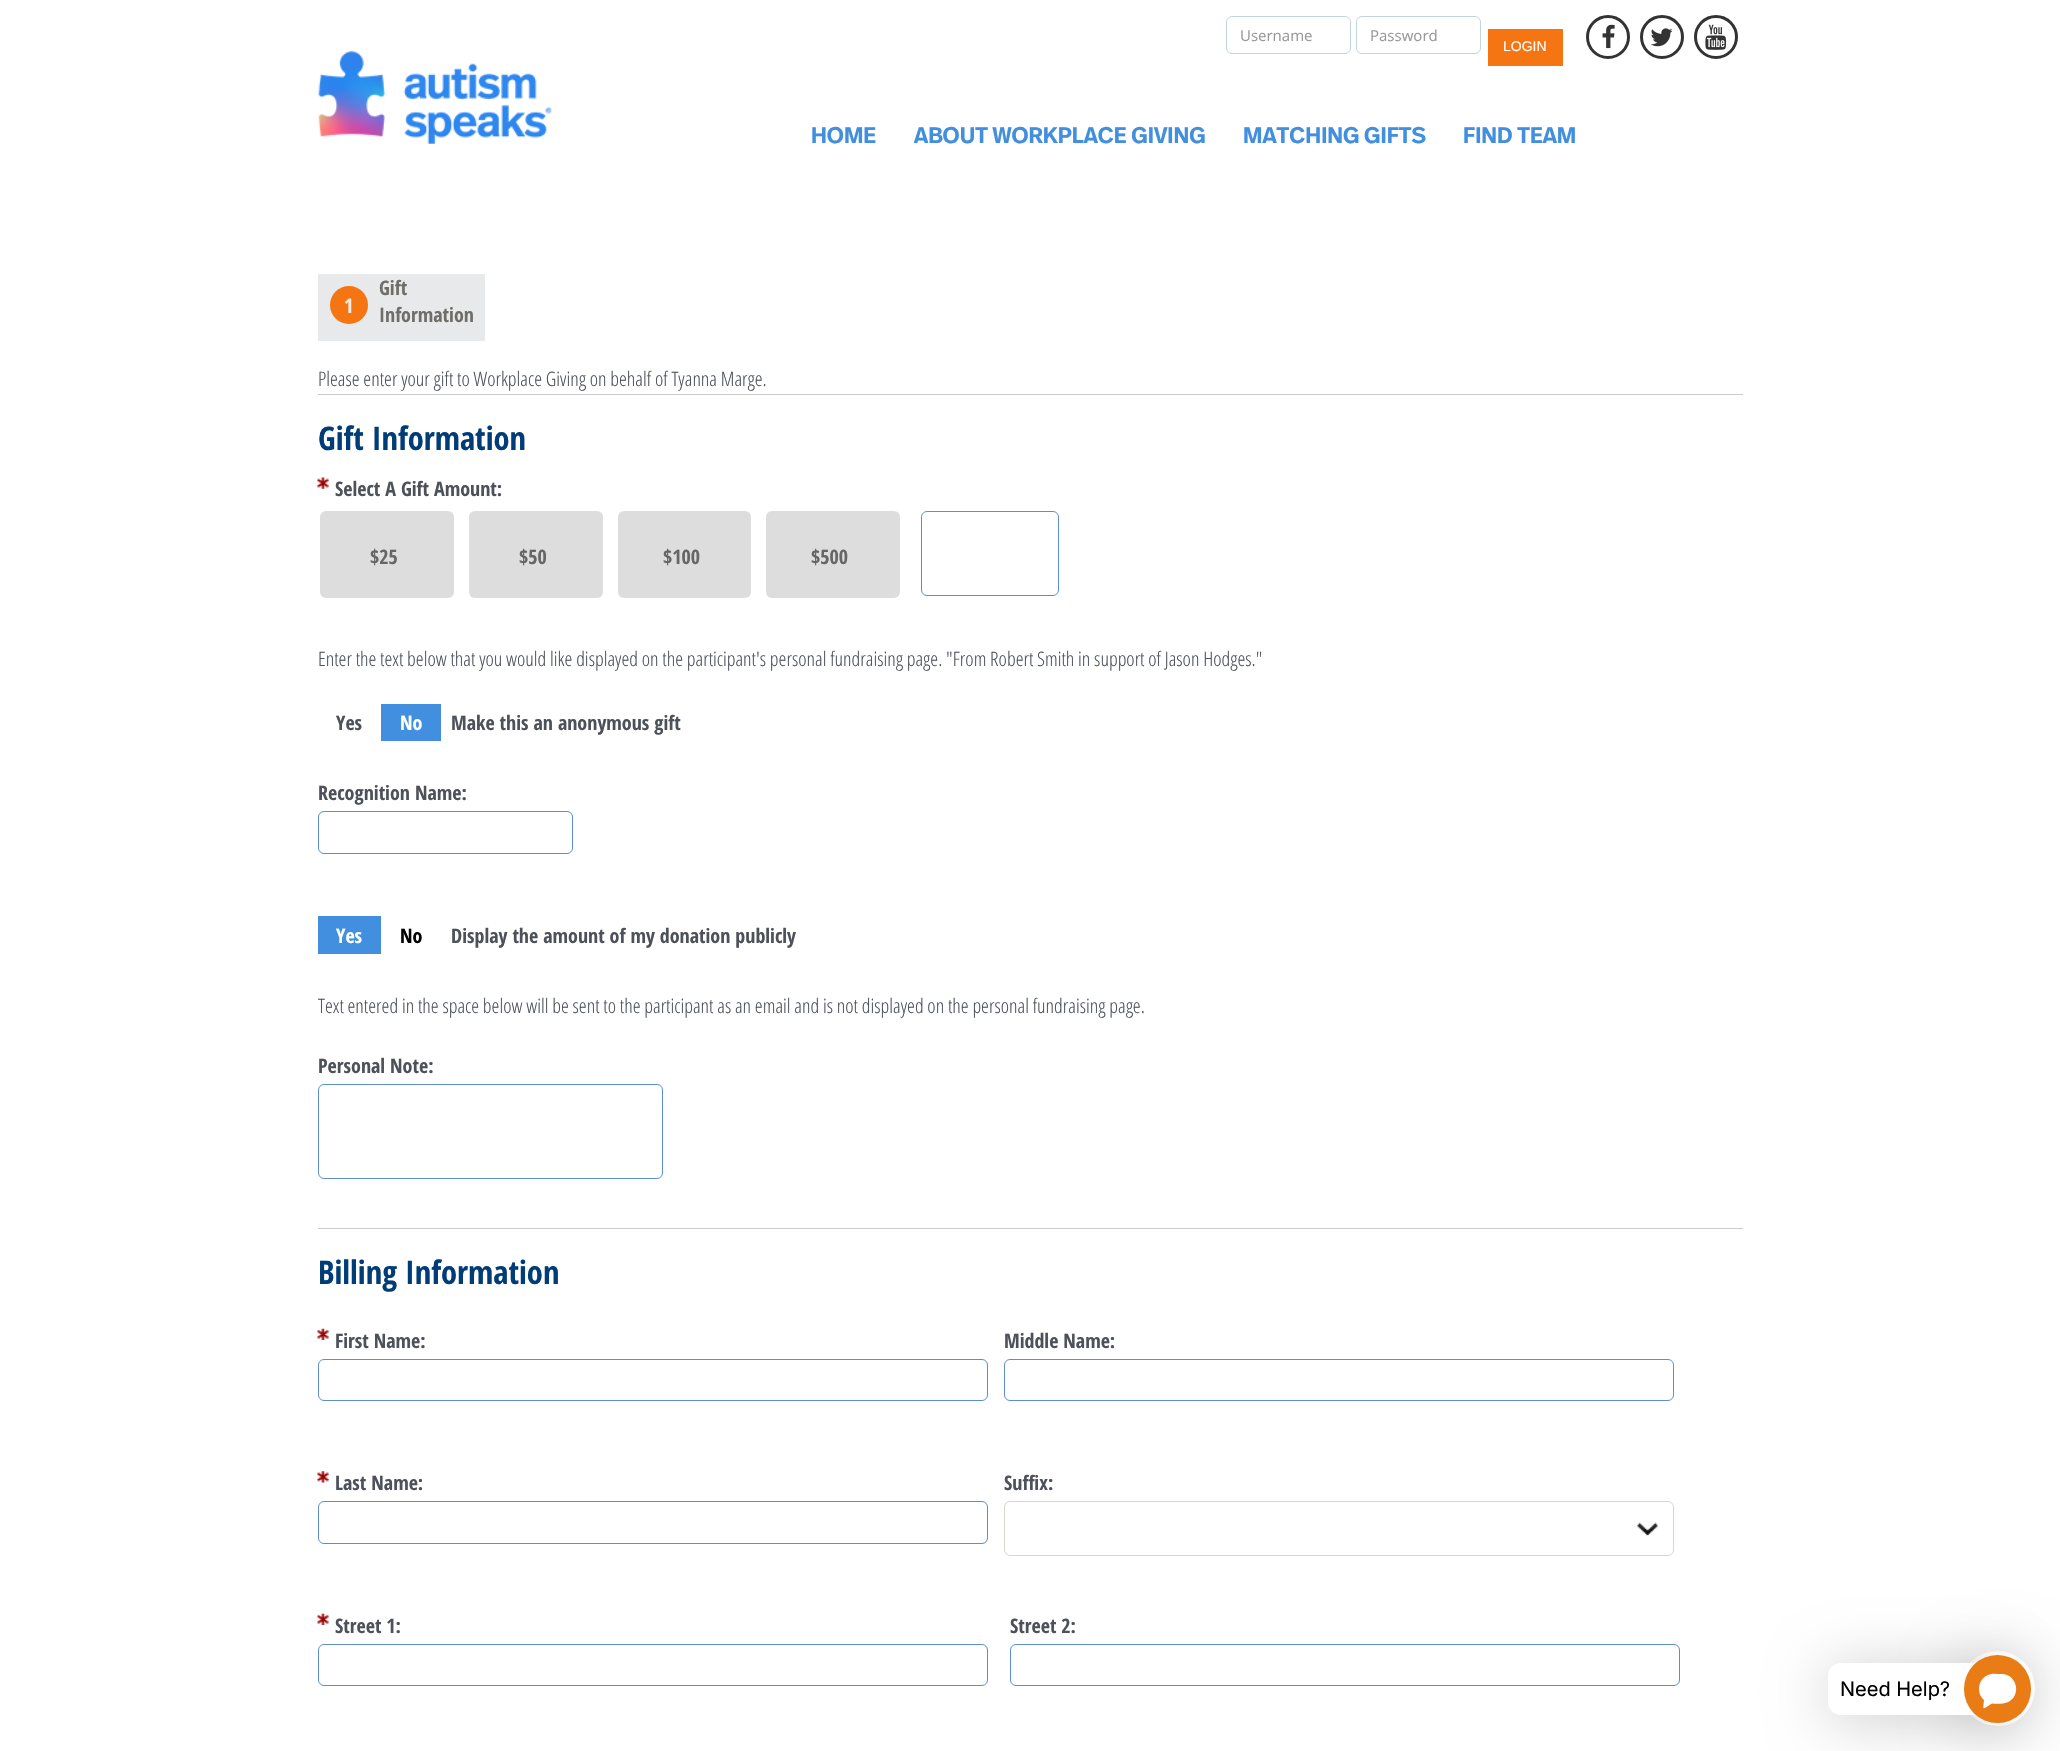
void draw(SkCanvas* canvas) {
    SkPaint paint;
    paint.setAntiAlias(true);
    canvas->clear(0xFFFFFFFF);
    canvas->drawImageRect(SkImages::DeferredFromEncodedData(SkData::MakeFromFileName("img1.png")), SkRect::MakeXYWH(318, 51, 234, 93), SkSamplingOptions());
    paint.setStyle(SkPaint::kStroke_Style);
    paint.setStrokeWidth(1);
    paint.setColor(0xFFC2D6DE);
    canvas->drawRoundRect(SkRect::MakeXYWH(1226.5f, 16.5f, 124, 37), 5.5f, 5.5f, paint);
    SkFont font1(fontMgr->matchFamilyStyle("Open Sans", SkFontStyle::Normal()), 15);
    font1.setSubpixel(true);
    paint.setStyle(SkPaint::kFill_Style);
    paint.setColor(0xFF999999);
    canvas->drawString("Username", 1240, 41, font1, paint);
    paint.setStyle(SkPaint::kStroke_Style);
    paint.setColor(0xFFC2D6DE);
    canvas->drawRoundRect(SkRect::MakeXYWH(1356.5f, 16.5f, 124, 37), 5.5f, 5.5f, paint);
    paint.setStyle(SkPaint::kFill_Style);
    paint.setColor(0xFF999999);
    canvas->drawString("Password", 1370, 41, font1, paint);
    paint.setColor(0xFFF57513);
    canvas->drawRect(SkRect::MakeXYWH(1488, 29, 75, 37), paint);
    SkFont font2(fontMgr->matchFamilyStyle("Liberation Sans", SkFontStyle::Normal()), 14);
    font2.setSubpixel(true);
    paint.setColor(0xFFFFFFFF);
    canvas->drawString("LOGIN", 1503, 51, font2, paint);
    paint.setStyle(SkPaint::kStroke_Style);
    paint.setStrokeWidth(3);
    paint.setColor(0xFF333333);
    canvas->drawCircle(1608, 37, 20.5f, paint);
    canvas->drawImageRect(SkImages::DeferredFromEncodedData(SkData::MakeFromFileName("img2.png")), SkRect::MakeXYWH(1602, 24, 13, 25), SkSamplingOptions());
    canvas->drawCircle(1662, 37, 20.5f, paint);
    canvas->drawImageRect(SkImages::DeferredFromEncodedData(SkData::MakeFromFileName("img3.png")), SkRect::MakeXYWH(1650, 28, 23, 19), SkSamplingOptions());
    canvas->drawCircle(1716, 37, 20.5f, paint);
    canvas->drawImageRect(SkImages::DeferredFromEncodedData(SkData::MakeFromFileName("img4.png")), SkRect::MakeXYWH(1705, 24, 22, 26), SkSamplingOptions());
    SkFont font3(fontMgr->matchFamilyStyle("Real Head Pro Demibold", SkFontStyle(600, SkFontStyle::kNormal_Width, SkFontStyle::kUpright_Slant)), 22.5f);
    font3.setSubpixel(true);
    paint.setStyle(SkPaint::kFill_Style);
    paint.setColor(0xFF418FDE);
    canvas->drawString("HOME", 811, 143, font3, paint);
    canvas->drawString("ABOUT WORKPLACE GIVING", 914, 143, font3, paint);
    canvas->drawString("MATCHING GIFTS", 1243, 143, font3, paint);
    canvas->drawString("FIND TEAM", 1463, 143, font3, paint);
    paint.setColor(0xFFE8E9EB);
    canvas->drawRect(SkRect::MakeXYWH(318, 274, 167, 67), paint);
    paint.setColor(0xFFF57513);
    canvas->drawCircle(349, 305, 19, paint);
    SkFont font4(fontMgr->matchFamilyStyle("Open Sans Condensed", SkFontStyle::Bold()), 20);
    font4.setSubpixel(true);
    paint.setColor(0xFFF0EFEB);
    canvas->drawString("1", 344, 313, font4, paint);
    paint.setColor(0xFF716E69);
    canvas->drawString("Gift", 379, 295, font4, paint);
    canvas->drawString("Information", 379, 322, font4, paint);
    SkFont font5(fontMgr->matchFamilyStyle("Open Sans Condensed", SkFontStyle(300, SkFontStyle::kNormal_Width, SkFontStyle::kUpright_Slant)), 20);
    font5.setSubpixel(true);
    paint.setColor(0xFF4D525A);
    canvas->drawString("Please enter your gift to Workplace Giving on behalf of Tyanna Marge.", 318, 386, font5, paint);
    paint.setColor(0xFFCCCCCC);
    canvas->drawRect(SkRect::MakeXYWH(318, 394, 1425, 1), paint);
    SkFont font6(fontMgr->matchFamilyStyle("Open Sans Condensed", SkFontStyle::Bold()), 32.5f);
    font6.setSubpixel(true);
    paint.setColor(0xFF003C77);
    canvas->drawString("Gift Information", 318, 450, font6, paint);
    canvas->drawImageRect(SkImages::DeferredFromEncodedData(SkData::MakeFromFileName("img5.png")), SkRect::MakeXYWH(317, 477, 12, 12), SkSamplingOptions());
    SkFont font7(fontMgr->matchFamilyStyle("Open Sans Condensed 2", SkFontStyle::Bold()), 20);
    font7.setSubpixel(true);
    paint.setColor(0xFF4D525A);
    canvas->drawString("Select A Gift Amount:", 335, 496, font7, paint);
    paint.setColor(0xFFDDDDDD);
    canvas->drawRoundRect(SkRect::MakeXYWH(320, 511, 134, 87), 6, 6, paint);
    paint.setColor(0xFF666666);
    canvas->drawString("$25", 370, 564, font4, paint);
    paint.setColor(0xFFDDDDDD);
    canvas->drawRoundRect(SkRect::MakeXYWH(469, 511, 134, 87), 6, 6, paint);
    paint.setColor(0xFF666666);
    canvas->drawString("$50", 519, 564, font4, paint);
    paint.setColor(0xFFDDDDDD);
    canvas->drawRoundRect(SkRect::MakeXYWH(618, 511, 133, 87), 6, 6, paint);
    paint.setColor(0xFF666666);
    canvas->drawString("$100", 663, 564, font4, paint);
    paint.setColor(0xFFDDDDDD);
    canvas->drawRoundRect(SkRect::MakeXYWH(766, 511, 134, 87), 6, 6, paint);
    paint.setColor(0xFF666666);
    canvas->drawString("$500", 811, 564, font4, paint);
    paint.setStyle(SkPaint::kStroke_Style);
    paint.setStrokeWidth(1);
    paint.setColor(0xFF5C8FCC);
    canvas->drawRoundRect(SkRect::MakeXYWH(921.5f, 511.5f, 137, 84), 5.5f, 5.5f, paint);
    paint.setStyle(SkPaint::kFill_Style);
    paint.setColor(0xFF4D525A);
    canvas->drawString("Enter the text below that you would like displayed on the participant's personal fundraising page. \"From Robert Smith in support of Jason Hodges.\"", 318, 666, font5, paint);
    canvas->drawString("Yes", 336, 730, font4, paint);
    paint.setColor(0xFF418FDE);
    canvas->drawRect(SkRect::MakeXYWH(381, 704, 60, 37), paint);
    paint.setColor(0xFFFFFFFF);
    canvas->drawString("No", 400, 730, font4, paint);
    paint.setColor(0xFF4D525A);
    canvas->drawString("Make this an anonymous gift", 451, 730, font7, paint);
    canvas->drawString("Recognition Name:", 318, 800, font7, paint);
    paint.setStyle(SkPaint::kStroke_Style);
    paint.setColor(0xFF5C8FCC);
    canvas->drawRoundRect(SkRect::MakeXYWH(318.5f, 811.5f, 254, 42), 5.5f, 5.5f, paint);
    paint.setStyle(SkPaint::kFill_Style);
    paint.setColor(0xFF418FDE);
    canvas->drawRect(SkRect::MakeXYWH(318, 916, 63, 38), paint);
    paint.setColor(0xFFFFFFFF);
    canvas->drawString("Yes", 336, 943, font4, paint);
    paint.setColor(0xFF000000);
    canvas->drawString("No", 400, 943, font4, paint);
    paint.setColor(0xFF4D525A);
    canvas->drawString("Display the amount of my donation publicly", 451, 943, font7, paint);
    canvas->drawString("Text entered in the space below will be sent to the participant as an email and is not displayed on the personal fundraising page.", 318, 1013, font5, paint);
    canvas->drawString("Personal Note:", 318, 1073, font7, paint);
    paint.setStyle(SkPaint::kStroke_Style);
    paint.setColor(0xFF5C8FCC);
    canvas->drawRoundRect(SkRect::MakeXYWH(318.5f, 1084.5f, 344, 94), 5.5f, 5.5f, paint);
    paint.setStyle(SkPaint::kFill_Style);
    paint.setColor(0xFFCCCCCC);
    canvas->drawRect(SkRect::MakeXYWH(318, 1228, 1425, 1), paint);
    paint.setColor(0xFF003C77);
    canvas->drawString("Billing Information", 318, 1284, font6, paint);
    canvas->drawImageRect(SkImages::DeferredFromEncodedData(SkData::MakeFromFileName("img6.png")), SkRect::MakeXYWH(317, 1328, 12, 12), SkSamplingOptions());
    paint.setColor(0xFF4D525A);
    canvas->drawString("First Name:", 335, 1348, font7, paint);
    paint.setStyle(SkPaint::kStroke_Style);
    paint.setColor(0xFF5C8FCC);
    canvas->drawRoundRect(SkRect::MakeXYWH(318.5f, 1359.5f, 669, 41), 5.5f, 5.5f, paint);
    paint.setStyle(SkPaint::kFill_Style);
    paint.setColor(0xFF4D525A);
    canvas->drawString("Middle Name:", 1004, 1348, font7, paint);
    paint.setStyle(SkPaint::kStroke_Style);
    paint.setColor(0xFF5C8FCC);
    canvas->drawRoundRect(SkRect::MakeXYWH(1004.5f, 1359.5f, 669, 41), 5.5f, 5.5f, paint);
    canvas->drawImageRect(SkImages::DeferredFromEncodedData(SkData::MakeFromFileName("img7.png")), SkRect::MakeXYWH(317, 1471, 12, 12), SkSamplingOptions());
    paint.setStyle(SkPaint::kFill_Style);
    paint.setColor(0xFF4D525A);
    canvas->drawString("Last Name:", 335, 1490, font7, paint);
    paint.setStyle(SkPaint::kStroke_Style);
    paint.setColor(0xFF5C8FCC);
    canvas->drawRoundRect(SkRect::MakeXYWH(318.5f, 1501.5f, 669, 42), 5.5f, 5.5f, paint);
    paint.setStyle(SkPaint::kFill_Style);
    paint.setColor(0xFF4D525A);
    canvas->drawString("Suffix:", 1004, 1490, font7, paint);
    canvas->drawImageRect(SkImages::DeferredFromEncodedData(SkData::MakeFromFileName("img8.png")), SkRect::MakeXYWH(1637, 1522, 21, 14), SkSamplingOptions());
    paint.setStyle(SkPaint::kStroke_Style);
    paint.setColor(0xFFD9D6CF);
    canvas->drawRoundRect(SkRect::MakeXYWH(1004.5f, 1501.5f, 669, 54), 5.5f, 5.5f, paint);
    canvas->drawImageRect(SkImages::DeferredFromEncodedData(SkData::MakeFromFileName("img6.png")), SkRect::MakeXYWH(317, 1613, 12, 12), SkSamplingOptions());
    paint.setStyle(SkPaint::kFill_Style);
    paint.setColor(0xFF4D525A);
    canvas->drawString("Street 1:", 335, 1633, font7, paint);
    paint.setStyle(SkPaint::kStroke_Style);
    paint.setColor(0xFF5C8FCC);
    canvas->drawRoundRect(SkRect::MakeXYWH(318.5f, 1644.5f, 669, 41), 5.5f, 5.5f, paint);
    paint.setStyle(SkPaint::kFill_Style);
    paint.setColor(0xFF4D525A);
    canvas->drawString("Street 2:", 1010, 1633, font7, paint);
    paint.setStyle(SkPaint::kStroke_Style);
    paint.setColor(0xFF5C8FCC);
    canvas->drawRoundRect(SkRect::MakeXYWH(1010.5f, 1644.5f, 669, 41), 5.5f, 5.5f, paint);
    paint.setStyle(SkPaint::kFill_Style);
    paint.setColor(0x33000000);
    paint.setMaskFilter(SkMaskFilter::MakeBlur(kNormal_SkBlurStyle, 30));
    canvas->drawRoundRect(SkRect::MakeXYWH(1960, 1656, 75, 75), 37.5f, 37.5f, paint);
    paint.setMaskFilter(nullptr);
    paint.setColor(0xFFFFFFFF);
    canvas->drawCircle(1997.5f, 1688.5f, 37.5f, paint);
    paint.setColor(0x33000000);
    paint.setMaskFilter(SkMaskFilter::MakeBlur(kNormal_SkBlurStyle, 30));
    canvas->drawRoundRect(SkRect::MakeXYWH(1828, 1668, 170, 52), 13, 13, paint);
    paint.setMaskFilter(nullptr);
    paint.setColor(0xFFFFFFFF);
    canvas->drawRoundRect(SkRect::MakeXYWH(1828, 1663, 170, 52), 13, 13, paint);
    paint.setColor(0xFFEA7C15);
    canvas->drawRoundRect(SkRect::MakeXYWH(1964, 1655, 67, 68), 33.5f, 33.5f, paint);
    paint.setColor(0xFFFFFFFF);
    canvas->drawPath(SkPathBuilder(SkPathFillType::kEvenOdd).moveTo(2001.5f, 1674).cubicTo(2017.5f, 1674, 2022, 1696.5f, 2007, 1702.5f).cubicTo(2003.5f, 1704, 1996.5f, 1704, 1992, 1703.5f).cubicTo(1982, 1709.5f, 1983, 1711, 1984, 1700).cubicTo(1976, 1693, 1978, 1679, 1988, 1675).cubicTo(1992, 1673, 1997, 1674, 2001.5f, 1674).close().detach(), paint);
    SkFont font8(fontMgr->matchFamilyStyle("Inter", SkFontStyle::Normal()), 20);
    font8.setSubpixel(true);
    paint.setColor(0xFF000000);
    canvas->drawString("Need Help?", 1840, 1696, font8, paint);
}
